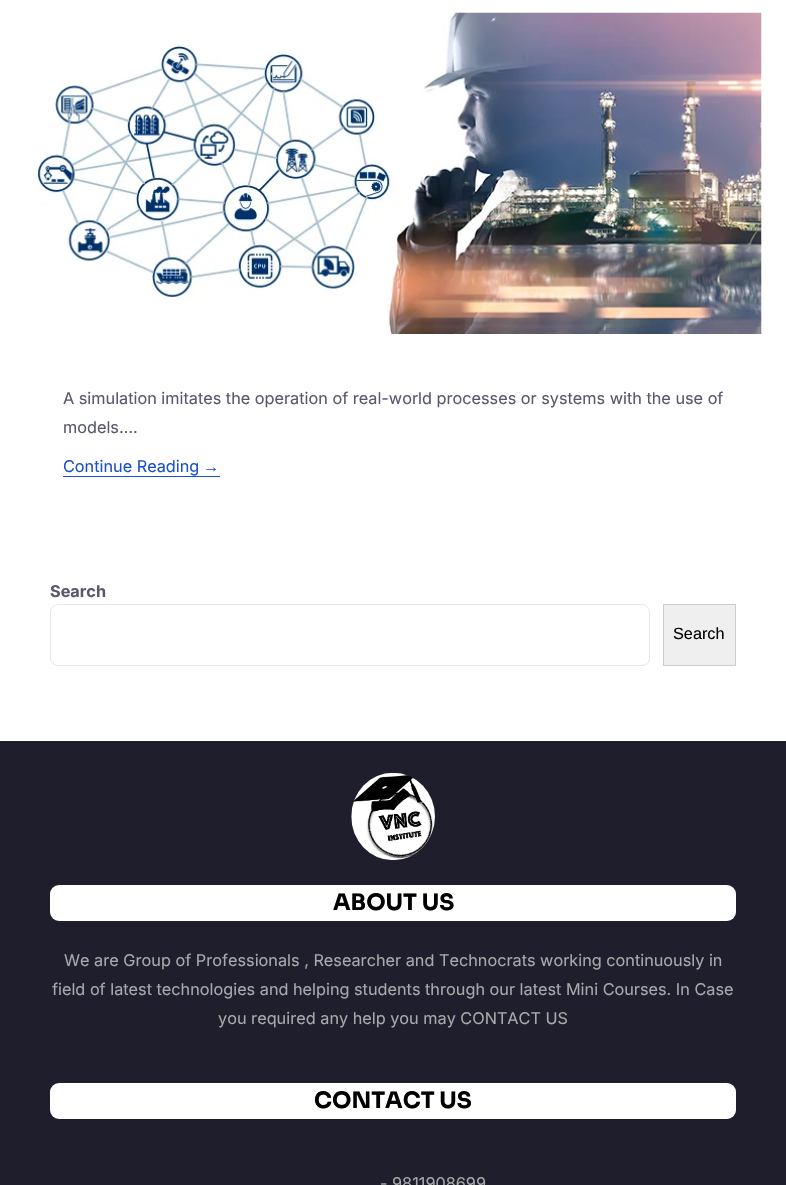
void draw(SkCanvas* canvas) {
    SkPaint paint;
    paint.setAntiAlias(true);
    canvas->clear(0xFFFFFFFF);
    canvas->drawImageRect(SkImages::DeferredFromEncodedData(SkData::MakeFromFileName("img1.png")), SkRect::MakeXYWH(33, 12, 729, 322), SkSamplingOptions());
    SkFont font1(fontMgr->matchFamilyStyle("Inter", SkFontStyle::Normal()), 16.25f);
    font1.setSubpixel(true);
    paint.setColor(0xFF57586E);
    canvas->drawString("A simulation imitates the operation of real-world processes or systems with the use of", 63, 404, font1, paint);
    canvas->drawString("models….", 63, 433, font1, paint);
    paint.setColor(0xFF1950D1);
    canvas->drawString("Continue Reading", 63, 472, font1, paint);
    SkFont font2(fontMgr->matchFamilyStyle("Liberation Serif", SkFontStyle::Normal()), 16.25f);
    font2.setSubpixel(true);
    canvas->drawString("→", 203, 472, font2, paint);
    canvas->drawRect(SkRect::MakeXYWH(63, 476, 157, 1), paint);
    SkFont font3(fontMgr->matchFamilyStyle("Inter", SkFontStyle::Bold()), 16.25f);
    font3.setSubpixel(true);
    paint.setColor(0xFF57586E);
    canvas->drawString("Search", 50, 597, font3, paint);
    paint.setStyle(SkPaint::kStroke_Style);
    paint.setStrokeWidth(1);
    paint.setColor(0xFFE7E6EB);
    canvas->drawRoundRect(SkRect::MakeXYWH(50.5f, 604.5f, 599, 61), 7.5f, 7.5f, paint);
    paint.setStyle(SkPaint::kFill_Style);
    paint.setColor(0xFFEFEFEF);
    canvas->drawRect(SkRect::MakeXYWH(663.5f, 604.5f, 72, 61), paint);
    paint.setStyle(SkPaint::kStroke_Style);
    paint.setColor(0xFFCCCCCC);
    canvas->drawRect(SkRect::MakeXYWH(663.5f, 604.5f, 72, 61), paint);
    SkFont font4(fontMgr->matchFamilyStyle("Liberation Sans", SkFontStyle::Normal()), 16.25f);
    font4.setSubpixel(true);
    paint.setStyle(SkPaint::kFill_Style);
    paint.setColor(0xFF000000);
    canvas->drawString("Search", 673, 639, font4, paint);
    paint.setColor(0xFF1E1E2C);
    canvas->drawRect(SkRect::MakeXYWH(0, 741, 786, 444), paint);
    canvas->drawImageRect(SkImages::DeferredFromEncodedData(SkData::MakeFromFileName("img2.png")), SkRect::MakeXYWH(351, 772, 84, 89), SkSamplingOptions());
    paint.setColor(0xFFFFFFFF);
    canvas->drawRoundRect(SkRect::MakeXYWH(50, 885, 686, 36), 9, 9, paint);
    SkFont font5(fontMgr->matchFamilyStyle("Sora", SkFontStyle::Bold()), 22.5f);
    font5.setSubpixel(true);
    paint.setColor(0xFF000000);
    canvas->drawString("ABOUT US", 333, 910, font5, paint);
    paint.setColor(0xFFA9A9A9);
    canvas->drawString("We are Group of Professionals , Researcher and Technocrats working continuously in", 64, 966, font1, paint);
    canvas->drawString("field of latest technologies and helping students through our latest Mini Courses. In Case", 52, 995, font1, paint);
    canvas->drawString("you required any help you may CONTACT US", 218, 1024, font1, paint);
    paint.setColor(0xFFFFFFFF);
    canvas->drawRoundRect(SkRect::MakeXYWH(50, 1083, 686, 36), 9, 9, paint);
    paint.setColor(0xFF000000);
    canvas->drawString("CONTACT US", 314, 1108, font5, paint);
    paint.setColor(0xFFA9A9A9);
    canvas->drawString("- 9811908699", 380, 1189, font1, paint);
}
